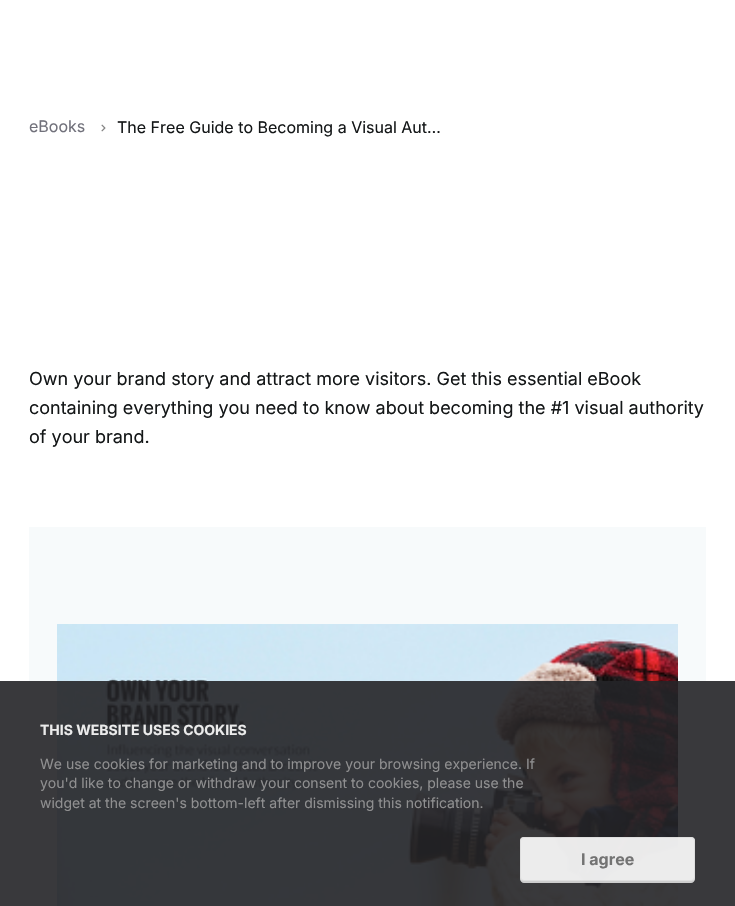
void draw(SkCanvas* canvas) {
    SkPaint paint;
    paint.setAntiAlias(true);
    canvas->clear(0xFFFFFFFF);
    SkFont font1(fontMgr->matchFamilyStyle("Inter", SkFontStyle::Normal()), 16);
    font1.setSubpixel(true);
    paint.setColor(0xFF71717B);
    canvas->drawString("eBooks", 29, 132, font1, paint);
    canvas->drawImageRect(SkImages::DeferredFromEncodedData(SkData::MakeFromFileName("img1.png")), SkRect::MakeXYWH(101, 124, 5, 8), SkSamplingOptions());
    paint.setColor(0xFF141718);
    canvas->drawString("The Free Guide to Becoming a Visual Aut…", 117, 133, font1, paint);
    SkFont font2(fontMgr->matchFamilyStyle("Inter", SkFontStyle::Normal()), 18);
    font2.setSubpixel(true);
    canvas->drawString("Own your brand story and attract more visitors. Get this essential eBook", 29, 385, font2, paint);
    canvas->drawString("containing everything you need to know about becoming the #1 visual authority", 29, 414, font2, paint);
    canvas->drawString("of your brand.", 29, 443, font2, paint);
    paint.setColor(0xFFF7FAFB);
    canvas->drawRect(SkRect::MakeXYWH(29, 527, 677, 379), paint);
    canvas->drawImageRect(SkImages::DeferredFromEncodedData(SkData::MakeFromFileName("img2.png")), SkRect::MakeXYWH(57, 624, 621, 282), SkSamplingOptions());
    paint.setColor(0xE6242427);
    canvas->drawRect(SkRect::MakeXYWH(0, 681, 735, 225), paint);
    SkFont font3(fontMgr->matchFamilyStyle("Inter", SkFontStyle::Bold()), 14);
    font3.setSubpixel(true);
    paint.setColor(0xFFEBEBEB);
    canvas->drawString("THIS WEBSITE USES COOKIES", 40, 735, font3, paint);
    SkFont font4(fontMgr->matchFamilyStyle("Inter", SkFontStyle::Normal()), 14);
    font4.setSubpixel(true);
    paint.setColor(0xFF8F8F90);
    canvas->drawString("We use cookies for marketing and to improve your browsing experience. If", 40, 769, font4, paint);
    canvas->drawString("you'd like to change or withdraw your consent to cookies, please use the", 40, 788, font4, paint);
    canvas->drawString("widget at the screen's bottom-left after dismissing this notification.", 40, 808, font4, paint);
    paint.setColor(0xE6DDDDDD);
    canvas->drawPath(SkPathBuilder().moveTo(520, 877).lineTo(520, 879).cubicTo(520, 881, 522, 883, 524, 883).lineTo(691, 883).cubicTo(693, 883, 695, 881, 695, 879).lineTo(695, 877).cubicTo(695, 879, 693, 881, 691, 881).lineTo(524, 881).cubicTo(522, 881, 520, 879, 520, 877).close().detach(), paint);
    paint.setColor(0xE6FFFFFF);
    canvas->drawRoundRect(SkRect::MakeXYWH(520, 837, 175, 44), 4, 4, paint);
    paint.setStyle(SkPaint::kStroke_Style);
    paint.setStrokeWidth(1);
    paint.setColor(0xE6DDDDDD);
    canvas->drawRoundRect(SkRect::MakeXYWH(520.5f, 837.5f, 174, 43), 3.5f, 3.5f, paint);
    SkFont font5(fontMgr->matchFamilyStyle("Inter", SkFontStyle::Bold()), 16);
    font5.setSubpixel(true);
    paint.setStyle(SkPaint::kFill_Style);
    paint.setColor(0xFF737373);
    canvas->drawString("I agree", 581, 865, font5, paint);
}
